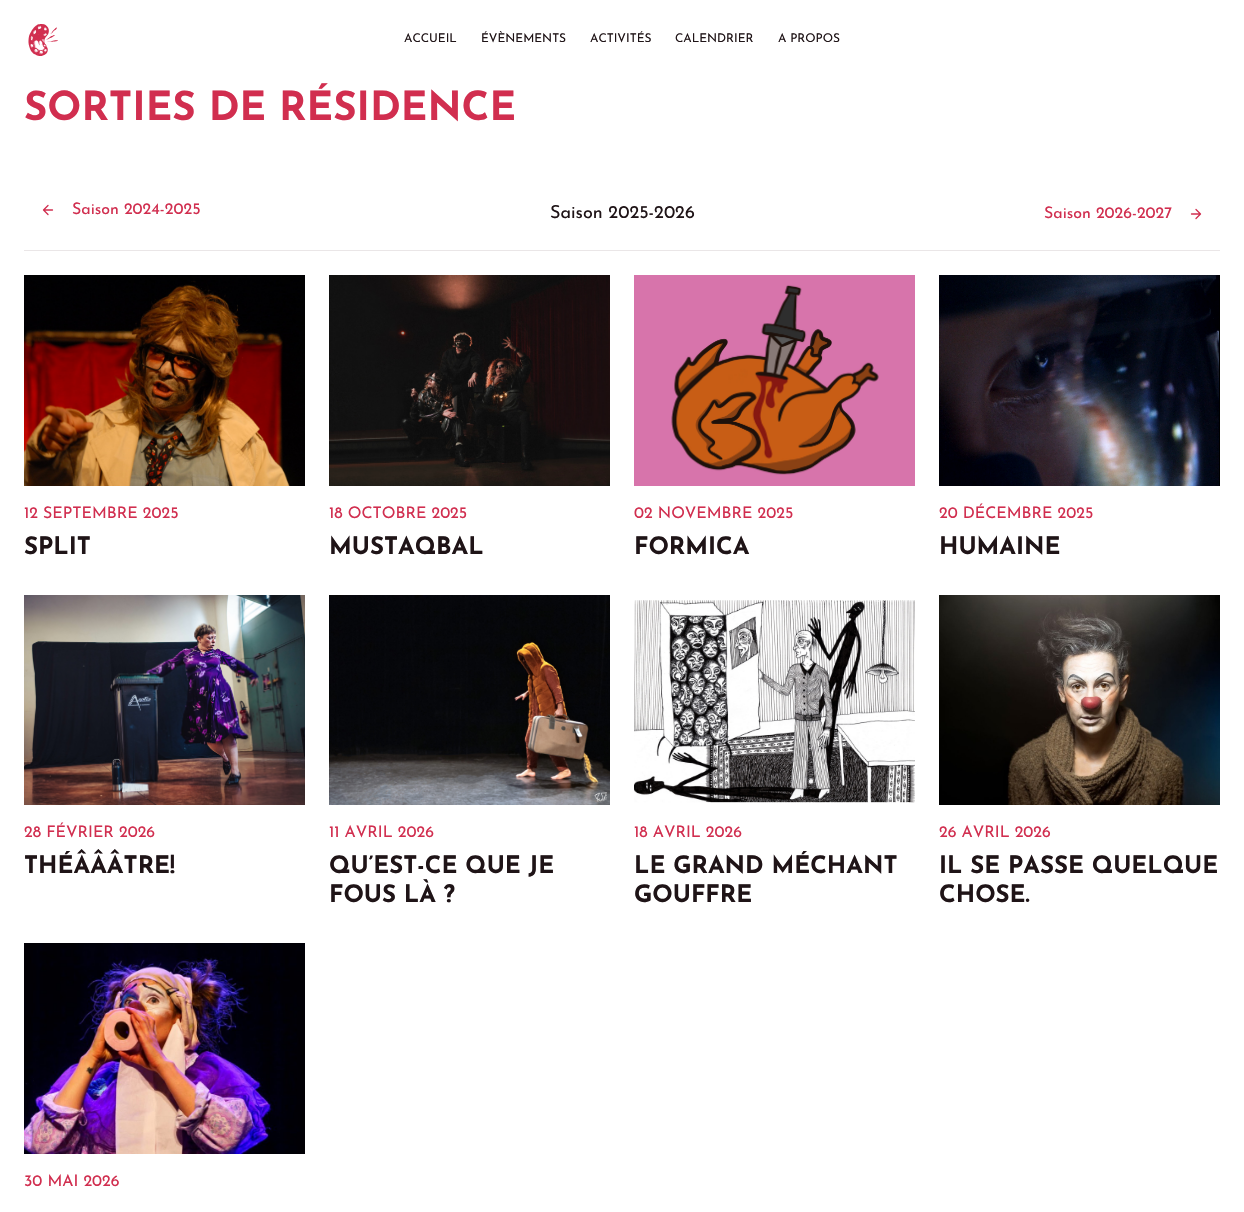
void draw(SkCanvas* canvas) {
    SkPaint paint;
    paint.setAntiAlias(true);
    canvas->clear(0xFFFFFFFF);
    canvas->drawImageRect(SkImages::DeferredFromEncodedData(SkData::MakeFromFileName("img1.png")), SkRect::MakeXYWH(28, 24, 30, 32), SkSamplingOptions());
    SkFont font1(fontMgr->matchFamilyStyle("Josefin Sans", SkFontStyle::Normal()), 12);
    font1.setSubpixel(true);
    paint.setColor(0xFF1F1417);
    canvas->drawString("ACCUEIL", 404, 42, font1, paint);
    canvas->drawString("ÉVÈNEMENTS", 481, 42, font1, paint);
    canvas->drawString("ACTIVITÉS", 590, 42, font1, paint);
    canvas->drawString("CALENDRIER", 675, 42, font1, paint);
    canvas->drawString("A PROPOS", 778, 42, font1, paint);
    SkFont font2(fontMgr->matchFamilyStyle("Josefin Sans", SkFontStyle::Bold()), 40);
    font2.setSubpixel(true);
    paint.setColor(0xFFD12E4F);
    canvas->drawString("SORTIES DE RÉSIDENCE", 24, 120, font2, paint);
    paint.setColor(0xFFEAE6E7);
    canvas->drawRect(SkRect::MakeXYWH(24, 250, 1196, 1), paint);
    paint.setStyle(SkPaint::kStroke_Style);
    paint.setStrokeWidth(1.3f);
    paint.setStrokeCap(SkPaint::kRound_Cap);
    paint.setStrokeJoin(SkPaint::kRound_Join);
    paint.setColor(0xFFD12E4F);
    canvas->drawPath(SkPathBuilder().moveTo(52.5f, 210).lineTo(44, 210).moveTo(48, 214.5f).lineTo(43.5f, 210).lineTo(48, 205.5f).detach(), paint);
    SkFont font3(fontMgr->matchFamilyStyle("Josefin Sans", SkFontStyle::Normal()), 16);
    font3.setSubpixel(true);
    paint.setStyle(SkPaint::kFill_Style);
    canvas->drawString("Saison 2024-2025", 72, 214, font3, paint);
    SkFont font4(fontMgr->matchFamilyStyle("Josefin Sans", SkFontStyle::Normal()), 18);
    font4.setSubpixel(true);
    paint.setColor(0xFF1F1417);
    canvas->drawString("Saison 2025-2026", 550, 218, font4, paint);
    paint.setColor(0xFFD12E4F);
    canvas->drawString("Saison 2026-2027", 1044, 218, font3, paint);
    paint.setStyle(SkPaint::kStroke_Style);
    canvas->drawPath(SkPathBuilder().moveTo(1191.5f, 214).lineTo(1200, 214).moveTo(1196, 209.5f).lineTo(1200.5f, 214).lineTo(1196, 218.5f).detach(), paint);
    canvas->drawImageRect(SkImages::DeferredFromEncodedData(SkData::MakeFromFileName("img2.png")), SkRect::MakeXYWH(24, 275, 281, 211), SkSamplingOptions());
    paint.setStyle(SkPaint::kFill_Style);
    canvas->drawString("12 SEPTEMBRE 2025", 24, 518, font3, paint);
    SkFont font5(fontMgr->matchFamilyStyle("Josefin Sans", SkFontStyle::Bold()), 24);
    font5.setSubpixel(true);
    paint.setColor(0xFF1F1417);
    canvas->drawString("SPLIT", 24, 554, font5, paint);
    canvas->drawImageRect(SkImages::DeferredFromEncodedData(SkData::MakeFromFileName("img3.png")), SkRect::MakeXYWH(329, 275, 281, 211), SkSamplingOptions());
    paint.setColor(0xFFD12E4F);
    canvas->drawString("18 OCTOBRE 2025", 329, 518, font3, paint);
    paint.setColor(0xFF1F1417);
    canvas->drawString("MUSTAQBAL", 329, 554, font5, paint);
    canvas->drawImageRect(SkImages::DeferredFromEncodedData(SkData::MakeFromFileName("img4.png")), SkRect::MakeXYWH(634, 275, 281, 211), SkSamplingOptions());
    paint.setColor(0xFFD12E4F);
    canvas->drawString("02 NOVEMBRE 2025", 634, 518, font3, paint);
    paint.setColor(0xFF1F1417);
    canvas->drawString("FORMICA", 634, 554, font5, paint);
    canvas->drawImageRect(SkImages::DeferredFromEncodedData(SkData::MakeFromFileName("img5.png")), SkRect::MakeXYWH(939, 275, 281, 211), SkSamplingOptions());
    paint.setColor(0xFFD12E4F);
    canvas->drawString("20 DÉCEMBRE 2025", 939, 518, font3, paint);
    paint.setColor(0xFF1F1417);
    canvas->drawString("HUMAINE", 939, 554, font5, paint);
    canvas->drawImageRect(SkImages::DeferredFromEncodedData(SkData::MakeFromFileName("img6.png")), SkRect::MakeXYWH(24, 595, 281, 210), SkSamplingOptions());
    paint.setColor(0xFFD12E4F);
    canvas->drawString("28 FÉVRIER 2026", 24, 837, font3, paint);
    paint.setColor(0xFF1F1417);
    canvas->drawString("THÉÂÂÂTRE!", 24, 873, font5, paint);
    canvas->drawImageRect(SkImages::DeferredFromEncodedData(SkData::MakeFromFileName("img7.png")), SkRect::MakeXYWH(329, 595, 281, 210), SkSamplingOptions());
    paint.setColor(0xFFD12E4F);
    canvas->drawString("11 AVRIL 2026", 329, 837, font3, paint);
    paint.setColor(0xFF1F1417);
    canvas->drawString("QU’EST-CE QUE JE", 329, 873, font5, paint);
    canvas->drawString("FOUS LÀ ?", 329, 902, font5, paint);
    canvas->drawImageRect(SkImages::DeferredFromEncodedData(SkData::MakeFromFileName("img8.png")), SkRect::MakeXYWH(634, 600, 281, 203), SkSamplingOptions());
    paint.setColor(0xFFD12E4F);
    canvas->drawString("18 AVRIL 2026", 634, 837, font3, paint);
    paint.setColor(0xFF1F1417);
    canvas->drawString("LE GRAND MÉCHANT", 634, 873, font5, paint);
    canvas->drawString("GOUFFRE", 634, 902, font5, paint);
    canvas->drawImageRect(SkImages::DeferredFromEncodedData(SkData::MakeFromFileName("img9.png")), SkRect::MakeXYWH(939, 595, 281, 210), SkSamplingOptions());
    paint.setColor(0xFFD12E4F);
    canvas->drawString("26 AVRIL 2026", 939, 837, font3, paint);
    paint.setColor(0xFF1F1417);
    canvas->drawString("IL SE PASSE QUELQUE", 939, 873, font5, paint);
    canvas->drawString("CHOSE.", 939, 902, font5, paint);
    canvas->drawImageRect(SkImages::DeferredFromEncodedData(SkData::MakeFromFileName("img10.png")), SkRect::MakeXYWH(24, 943, 281, 211), SkSamplingOptions());
    paint.setColor(0xFFD12E4F);
    canvas->drawString("30 MAI 2026", 24, 1186, font3, paint);
}
